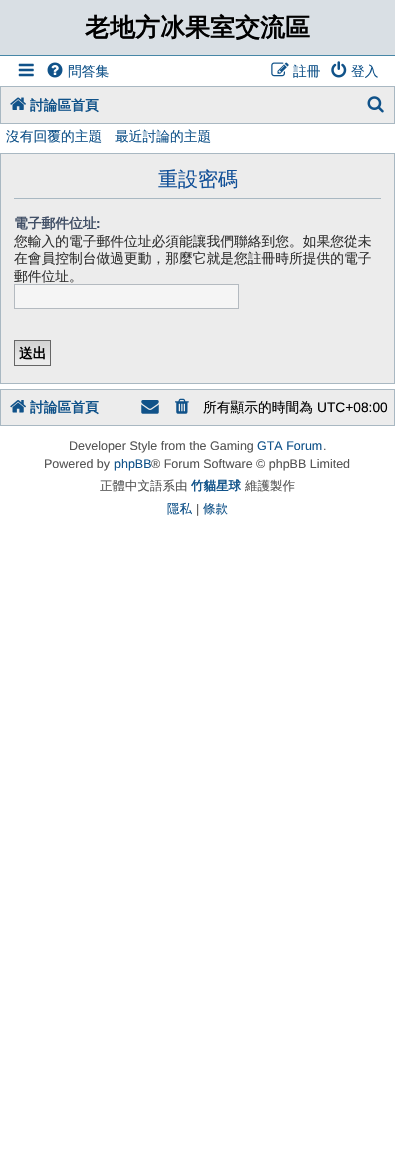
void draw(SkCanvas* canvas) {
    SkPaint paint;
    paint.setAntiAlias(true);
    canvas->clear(0xFFFFFFFF);
    paint.setColor(0xFFD9DFE4);
    canvas->drawRect(SkRect::MakeXYWH(0, 0, 395, 55), paint);
    paint.setColor(0xFF4787A7);
    canvas->drawRect(SkRect::MakeXYWH(0, 55, 395, 1), paint);
    SkFont font1(fontMgr->matchFamilyStyle("WenQuanYi Zen Hei", SkFontStyle::Bold()), 25);
    font1.setSubpixel(true);
    paint.setColor(0xFF000000);
    canvas->drawString("老地方冰果室交流區", 85, 36, font1, paint);
    canvas->drawImageRect(SkImages::DeferredFromEncodedData(SkData::MakeFromFileName("img1.png")), SkRect::MakeXYWH(18, 63, 16, 14), SkSamplingOptions());
    canvas->drawImageRect(SkImages::DeferredFromEncodedData(SkData::MakeFromFileName("img2.png")), SkRect::MakeXYWH(47, 62, 16, 16), SkSamplingOptions());
    SkFont font2(fontMgr->matchFamilyStyle("WenQuanYi Zen Hei", SkFontStyle(500, SkFontStyle::kNormal_Width, SkFontStyle::kUpright_Slant)), 13.75f);
    font2.setSubpixel(true);
    paint.setColor(0xFF105289);
    canvas->drawString("問答集", 68, 76, font2, paint);
    canvas->drawImageRect(SkImages::DeferredFromEncodedData(SkData::MakeFromFileName("img3.png")), SkRect::MakeXYWH(271, 62, 18, 15), SkSamplingOptions());
    canvas->drawString("註冊", 293, 76, font2, paint);
    canvas->drawImageRect(SkImages::DeferredFromEncodedData(SkData::MakeFromFileName("img4.png")), SkRect::MakeXYWH(331, 61, 16, 17), SkSamplingOptions());
    canvas->drawString("登入", 351, 76, font2, paint);
    paint.setColor(0xFFECECEC);
    canvas->drawRect(SkRect::MakeXYWH(0.5f, 86.5f, 394, 37), paint);
    paint.setStyle(SkPaint::kStroke_Style);
    paint.setStrokeWidth(1);
    paint.setColor(0xFFA9B8C2);
    canvas->drawRect(SkRect::MakeXYWH(0.5f, 86.5f, 394, 37), paint);
    canvas->drawImageRect(SkImages::DeferredFromEncodedData(SkData::MakeFromFileName("img5.png")), SkRect::MakeXYWH(10, 97, 16, 13), SkSamplingOptions());
    SkFont font3(fontMgr->matchFamilyStyle("WenQuanYi Zen Hei", SkFontStyle::Bold()), 13.75f);
    font3.setSubpixel(true);
    paint.setStyle(SkPaint::kFill_Style);
    paint.setColor(0xFF105289);
    canvas->drawString("討論區首頁", 30, 110, font3, paint);
    canvas->drawImageRect(SkImages::DeferredFromEncodedData(SkData::MakeFromFileName("img6.png")), SkRect::MakeXYWH(367, 96, 17, 17), SkSamplingOptions());
    canvas->drawString("沒有回覆的主題", 6, 141, font2, paint);
    canvas->drawString("最近討論的主題", 115, 141, font2, paint);
    paint.setColor(0xFFECECEC);
    canvas->drawRect(SkRect::MakeXYWH(0.5f, 153.5f, 394, 230), paint);
    paint.setStyle(SkPaint::kStroke_Style);
    paint.setColor(0xFFA9B8C2);
    canvas->drawRect(SkRect::MakeXYWH(0.5f, 153.5f, 394, 230), paint);
    paint.setStyle(SkPaint::kFill_Style);
    canvas->drawRect(SkRect::MakeXYWH(14, 198, 367, 1), paint);
    SkFont font4(fontMgr->matchFamilyStyle("WenQuanYi Zen Hei", SkFontStyle(500, SkFontStyle::kNormal_Width, SkFontStyle::kUpright_Slant)), 20);
    font4.setSubpixel(true);
    paint.setColor(0xFF115098);
    canvas->drawString("重設密碼", 158, 186, font4, paint);
    paint.setColor(0xFF425067);
    canvas->drawString("電子郵件位址", 14, 228, font3, paint);
    SkFont font5(fontMgr->matchFamilyStyle("Liberation Sans", SkFontStyle::Bold()), 13.75f);
    font5.setSubpixel(true);
    canvas->drawString(":", 96, 228, font5, paint);
    paint.setColor(0xFF333333);
    canvas->drawString("您輸入的電子郵件位址必須能讓我們聯絡到您。如果您從未", 14, 246, font2, paint);
    canvas->drawString("在會員控制台做過更動，那麼它就是您註冊時所提供的電子", 14, 263, font2, paint);
    canvas->drawString("郵件位址。", 14, 281, font2, paint);
    paint.setColor(0xFFF5F5F5);
    canvas->drawRect(SkRect::MakeXYWH(14.5f, 284.5f, 224, 24), paint);
    paint.setStyle(SkPaint::kStroke_Style);
    paint.setColor(0xFFB4BAC0);
    canvas->drawRect(SkRect::MakeXYWH(14.5f, 284.5f, 224, 24), paint);
    paint.setStyle(SkPaint::kFill_Style);
    {
        const SkColor colors[] = {0xFFD2D2D2, 0xFFEFEFEF};
        const float stops[] = {0, 1};
        const SkPoint ends[] = {{33, 341}, {33, 365}};
        paint.setShader(SkGradientShader::MakeLinear(ends, colors, stops, 2, SkTileMode::kClamp));
        paint.setAlpha(255);
    }
    canvas->drawRect(SkRect::MakeXYWH(15, 341, 35, 19), paint);
    paint.setStyle(SkPaint::kStroke_Style);
    paint.setShader(nullptr);
    paint.setColor(0xFF666666);
    canvas->drawRect(SkRect::MakeXYWH(14.5f, 340.5f, 36, 25), paint);
    paint.setStyle(SkPaint::kFill_Style);
    paint.setColor(0xFF000000);
    canvas->drawString("送出", 19, 358, font3, paint);
    paint.setColor(0xFFECECEC);
    canvas->drawRect(SkRect::MakeXYWH(0.5f, 389.5f, 394, 36), paint);
    paint.setStyle(SkPaint::kStroke_Style);
    paint.setColor(0xFFA9B8C2);
    canvas->drawRect(SkRect::MakeXYWH(0.5f, 389.5f, 394, 36), paint);
    canvas->drawImageRect(SkImages::DeferredFromEncodedData(SkData::MakeFromFileName("img7.png")), SkRect::MakeXYWH(10, 400, 16, 13), SkSamplingOptions());
    paint.setStyle(SkPaint::kFill_Style);
    paint.setColor(0xFF105289);
    canvas->drawString("討論區首頁", 30, 412, font3, paint);
    canvas->drawImageRect(SkImages::DeferredFromEncodedData(SkData::MakeFromFileName("img8.png")), SkRect::MakeXYWH(141, 400, 18, 14), SkSamplingOptions());
    canvas->drawImageRect(SkImages::DeferredFromEncodedData(SkData::MakeFromFileName("img9.png")), SkRect::MakeXYWH(175, 398, 14, 16), SkSamplingOptions());
    paint.setColor(0xFF000000);
    canvas->drawString("所有顯示的時間為", 203, 412, font2, paint);
    SkFont font6(fontMgr->matchFamilyStyle("Liberation Sans", SkFontStyle::Normal()), 13.75f);
    font6.setSubpixel(true);
    canvas->drawString("UTC+08:00", 317, 412, font6, paint);
    SkFont font7(fontMgr->matchFamilyStyle("Liberation Sans", SkFontStyle::Normal()), 12.5f);
    font7.setSubpixel(true);
    paint.setColor(0xFF555555);
    canvas->drawString("Developer Style from the Gaming", 69, 450, font7, paint);
    paint.setColor(0xFF105289);
    canvas->drawString("GTA Forum", 257, 450, font7, paint);
    paint.setColor(0xFF555555);
    canvas->drawString(".", 323, 450, font7, paint);
    canvas->drawString("Powered by", 44, 468, font7, paint);
    paint.setColor(0xFF105289);
    canvas->drawString("phpBB", 114, 468, font7, paint);
    paint.setColor(0xFF555555);
    canvas->drawString("® Forum Software © phpBB Limited", 151, 468, font7, paint);
    SkFont font8(fontMgr->matchFamilyStyle("WenQuanYi Zen Hei", SkFontStyle(500, SkFontStyle::kNormal_Width, SkFontStyle::kUpright_Slant)), 12.5f);
    font8.setSubpixel(true);
    canvas->drawString("正體中文語系由", 100, 490, font8, paint);
    SkFont font9(fontMgr->matchFamilyStyle("WenQuanYi Zen Hei", SkFontStyle::Bold()), 12.5f);
    font9.setSubpixel(true);
    paint.setColor(0xFF105289);
    canvas->drawString("竹貓星球", 191, 490, font9, paint);
    paint.setColor(0xFF555555);
    canvas->drawString("維護製作", 245, 490, font8, paint);
    paint.setColor(0xFF105289);
    canvas->drawString("隱私", 167, 513, font8, paint);
    paint.setColor(0xFF555555);
    canvas->drawString("|", 196, 513, font7, paint);
    paint.setColor(0xFF105289);
    canvas->drawString("條款", 203, 513, font8, paint);
}
